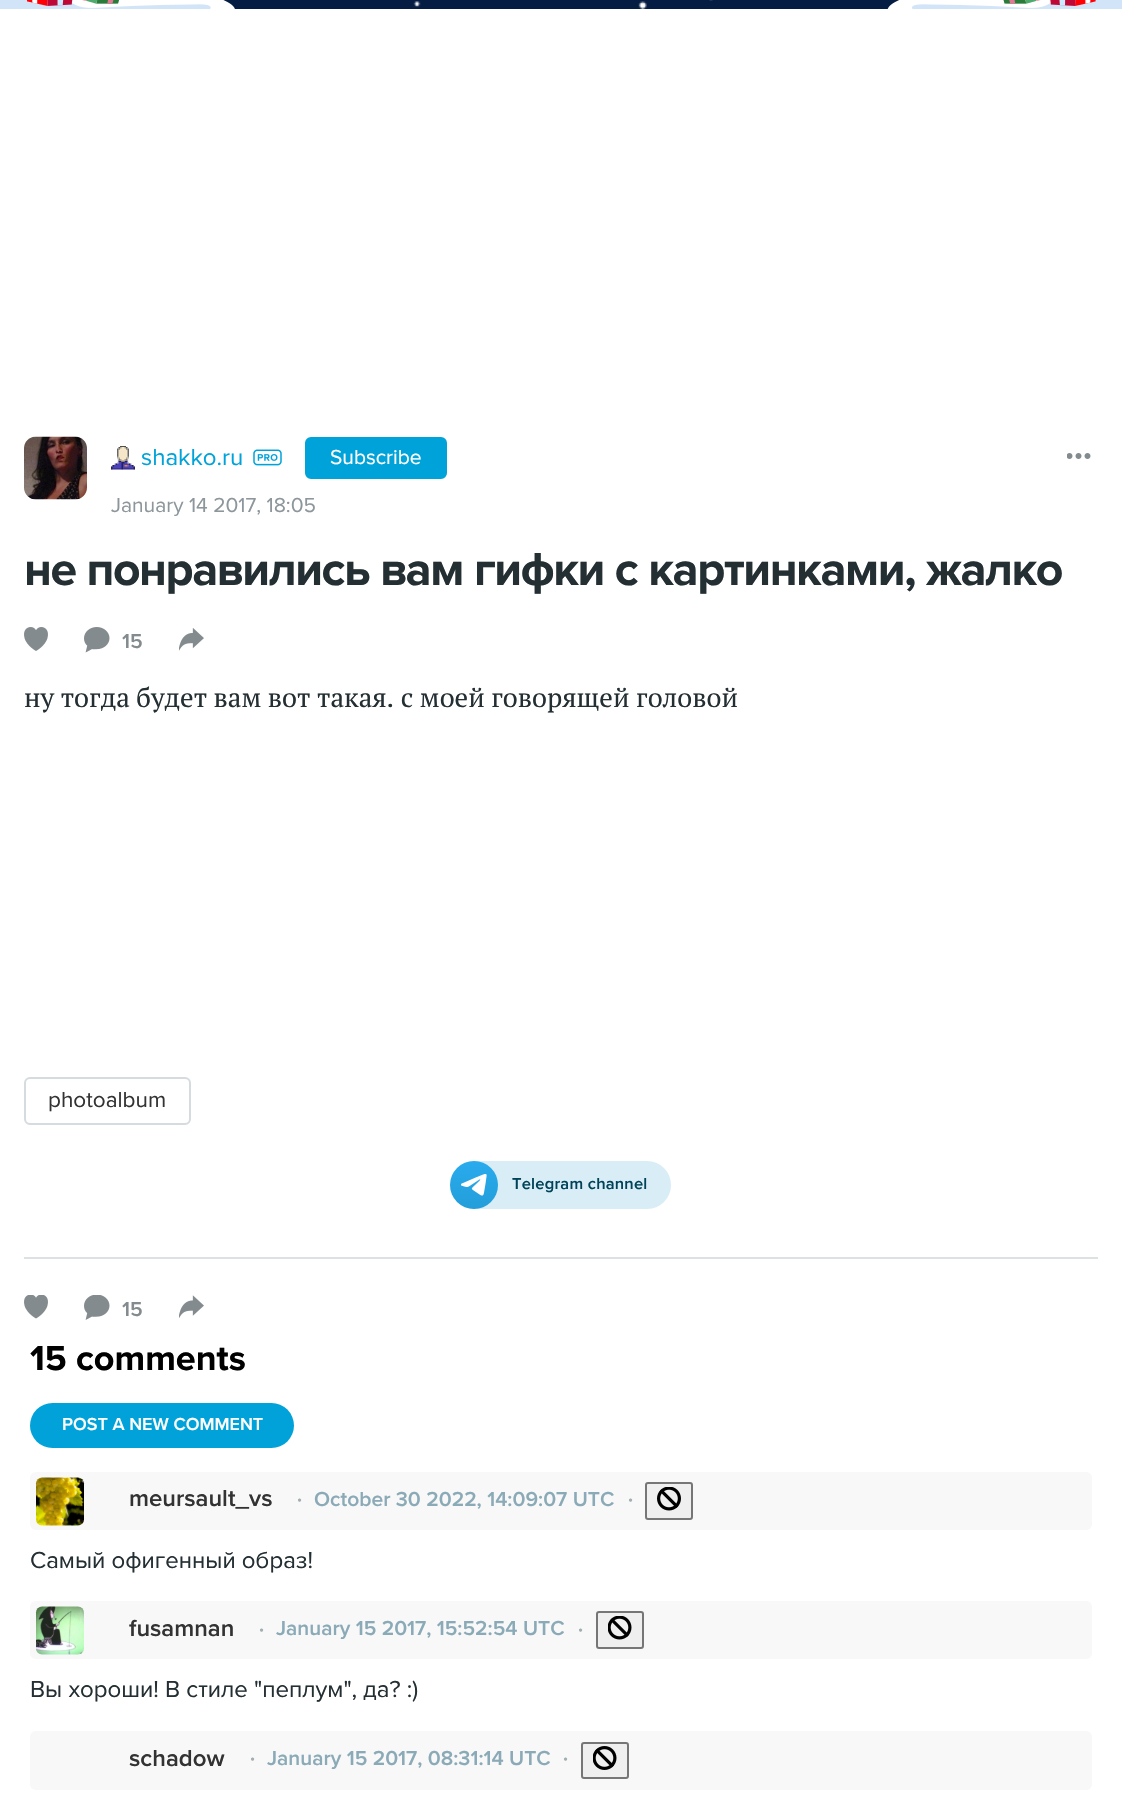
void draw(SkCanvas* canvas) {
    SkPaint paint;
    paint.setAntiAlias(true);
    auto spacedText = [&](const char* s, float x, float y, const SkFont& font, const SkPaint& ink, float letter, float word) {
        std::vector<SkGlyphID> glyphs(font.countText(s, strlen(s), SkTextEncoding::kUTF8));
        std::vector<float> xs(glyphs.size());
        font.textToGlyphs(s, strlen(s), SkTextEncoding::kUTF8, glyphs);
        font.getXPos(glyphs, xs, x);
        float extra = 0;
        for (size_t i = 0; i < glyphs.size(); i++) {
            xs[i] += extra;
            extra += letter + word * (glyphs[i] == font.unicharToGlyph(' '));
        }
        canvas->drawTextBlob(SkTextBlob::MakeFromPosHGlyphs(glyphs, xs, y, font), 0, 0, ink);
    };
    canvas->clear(0xFFFFFFFF);
    paint.setColor(0xFF051D42);
    canvas->drawRect(SkRect::MakeXYWH(223, 0, 677, 9), paint);
    canvas->drawImageRect(SkImages::DeferredFromEncodedData(SkData::MakeFromFileName("img1.png")), SkRect::MakeXYWH(0, 0, 235, 9), SkSamplingOptions());
    canvas->drawImageRect(SkImages::DeferredFromEncodedData(SkData::MakeFromFileName("img2.png")), SkRect::MakeXYWH(27, 0, 92, 6), SkSamplingOptions());
    canvas->drawImageRect(SkImages::DeferredFromEncodedData(SkData::MakeFromFileName("img3.png")), SkRect::MakeXYWH(413, 0, 300, 9), SkSamplingOptions());
    canvas->drawImageRect(SkImages::DeferredFromEncodedData(SkData::MakeFromFileName("img4.png")), SkRect::MakeXYWH(887, 0, 235, 9), SkSamplingOptions());
    canvas->drawImageRect(SkImages::DeferredFromEncodedData(SkData::MakeFromFileName("img5.png")), SkRect::MakeXYWH(1003, 0, 93, 6), SkSamplingOptions());
    canvas->drawImageRect(SkImages::DeferredFromEncodedData(SkData::MakeFromFileName("img6.png")), SkRect::MakeXYWH(24, 436, 63, 64), SkSamplingOptions());
    canvas->drawImageRect(SkImages::DeferredFromEncodedData(SkData::MakeFromFileName("img7.png")), SkRect::MakeXYWH(111, 446, 24, 24), SkSamplingOptions());
    SkFont font1(fontMgr->matchFamilyStyle("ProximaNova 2", SkFontStyle::Normal()), 24);
    font1.setSubpixel(true);
    paint.setColor(0xFF00A3D9);
    canvas->drawString("shakko.ru", 141, 465, font1, paint);
    canvas->drawImageRect(SkImages::DeferredFromEncodedData(SkData::MakeFromFileName("img8.png")), SkRect::MakeXYWH(253, 449, 29, 17), SkSamplingOptions());
    canvas->drawRoundRect(SkRect::MakeXYWH(306, 438, 140, 40), 5, 5, paint);
    paint.setStyle(SkPaint::kStroke_Style);
    paint.setStrokeWidth(2);
    canvas->drawRoundRect(SkRect::MakeXYWH(306, 438, 140, 40), 5, 5, paint);
    SkFont font2(fontMgr->matchFamilyStyle("ProximaNova 2", SkFontStyle::Normal()), 21);
    font2.setSubpixel(true);
    paint.setStyle(SkPaint::kFill_Style);
    paint.setColor(0xFFFFFFFF);
    canvas->drawString("Subscribe", 330, 464, font2, paint);
    paint.setColor(0xFF8C969B);
    canvas->drawString("January 14 2017, 18:05", 111, 512, font2, paint);
    canvas->drawImageRect(SkImages::DeferredFromEncodedData(SkData::MakeFromFileName("img9.png")), SkRect::MakeXYWH(1067, 453, 24, 6), SkSamplingOptions());
    SkFont font3(fontMgr->matchFamilyStyle("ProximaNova", SkFontStyle::Normal()), 48);
    font3.setSubpixel(true);
    paint.setColor(0xFF242F33);
    spacedText("не понравились вам гифки с картинками, жалко", 24, 585, font3, paint, -1.4f, 0);
    canvas->drawImageRect(SkImages::DeferredFromEncodedData(SkData::MakeFromFileName("img10.png")), SkRect::MakeXYWH(24, 627, 24, 24), SkSamplingOptions());
    canvas->drawImageRect(SkImages::DeferredFromEncodedData(SkData::MakeFromFileName("img11.png")), SkRect::MakeXYWH(84, 627, 26, 26), SkSamplingOptions());
    SkFont font4(fontMgr->matchFamilyStyle("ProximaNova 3", SkFontStyle::Normal()), 21);
    font4.setSubpixel(true);
    paint.setColor(0xFF838B8E);
    canvas->drawString("15", 122, 648, font4, paint);
    canvas->drawImageRect(SkImages::DeferredFromEncodedData(SkData::MakeFromFileName("img12.png")), SkRect::MakeXYWH(179, 628, 25, 23), SkSamplingOptions());
    SkFont font5(fontMgr->matchFamilyStyle("PT Serif", SkFontStyle::Normal()), 27);
    font5.setSubpixel(true);
    paint.setColor(0xFF242F33);
    canvas->drawString("ну тогда будет вам вот такая. с моей говорящей головой", 24, 707, font5, paint);
    paint.setStyle(SkPaint::kStroke_Style);
    paint.setColor(0xFFD4DCE0);
    canvas->drawRoundRect(SkRect::MakeXYWH(25, 1078, 165, 46), 5, 5, paint);
    SkFont font6(fontMgr->matchFamilyStyle("ProximaNova 2", SkFontStyle::Normal()), 22.5f);
    font6.setSubpixel(true);
    paint.setStyle(SkPaint::kFill_Style);
    paint.setColor(0xFF333333);
    canvas->drawString("photoalbum", 48, 1107, font6, paint);
    paint.setColor(0xFFD9EDF7);
    canvas->drawRoundRect(SkRect::MakeXYWH(452, 1161, 219, 48), 24, 24, paint);
    {
        const SkColor colors[] = {0xFF2AABEE, 0xFF229ED9};
        const float stops[] = {0, 1};
        const SkPoint ends[] = {{474, 1161}, {474, 1209}};
        paint.setShader(SkGradientShader::MakeLinear(ends, colors, stops, 2, SkTileMode::kClamp));
        paint.setAlpha(255);
    }
    canvas->drawCircle(474, 1185, 24, paint);
    canvas->drawImageRect(SkImages::DeferredFromEncodedData(SkData::MakeFromFileName("img13.png")), SkRect::MakeXYWH(461, 1174, 26, 22), SkSamplingOptions());
    SkFont font7(fontMgr->matchFamilyStyle("ProximaNova 3", SkFontStyle::Normal()), 16.5f);
    font7.setSubpixel(true);
    paint.setShader(nullptr);
    paint.setColor(0xFF004359);
    spacedText("Telegram channel", 512, 1189, font7, paint, 0.2f, 0);
    paint.setColor(0xFFDCE1E4);
    canvas->drawRect(SkRect::MakeXYWH(24, 1257, 1074, 2), paint);
    canvas->drawImageRect(SkImages::DeferredFromEncodedData(SkData::MakeFromFileName("img14.png")), SkRect::MakeXYWH(24, 1295, 24, 24), SkSamplingOptions());
    canvas->drawImageRect(SkImages::DeferredFromEncodedData(SkData::MakeFromFileName("img15.png")), SkRect::MakeXYWH(84, 1295, 26, 25), SkSamplingOptions());
    paint.setColor(0xFF838B8E);
    canvas->drawString("15", 122, 1316, font4, paint);
    canvas->drawImageRect(SkImages::DeferredFromEncodedData(SkData::MakeFromFileName("img16.png")), SkRect::MakeXYWH(179, 1295, 25, 23), SkSamplingOptions());
    SkFont font8(fontMgr->matchFamilyStyle("ProximaNova", SkFontStyle::Normal()), 36);
    font8.setSubpixel(true);
    paint.setColor(0xFF000000);
    canvas->drawString("15 comments", 30, 1370, font8, paint);
    paint.setColor(0xFF00A2D9);
    canvas->drawRoundRect(SkRect::MakeXYWH(30, 1403, 264, 45), 22.5f, 22.5f, paint);
    SkFont font9(fontMgr->matchFamilyStyle("ProximaNova 3", SkFontStyle::Normal()), 18);
    font9.setSubpixel(true);
    paint.setColor(0xFFFFFFFF);
    canvas->drawString("POST A NEW COMMENT", 62, 1430, font9, paint);
    paint.setColor(0xFFF8F8F8);
    canvas->drawRoundRect(SkRect::MakeXYWH(30, 1472, 1062, 58), 6, 6, paint);
    canvas->drawImageRect(SkImages::DeferredFromEncodedData(SkData::MakeFromFileName("img17.png")), SkRect::MakeXYWH(35, 1477, 50, 49), SkSamplingOptions());
    SkFont font10(fontMgr->matchFamilyStyle("ProximaNova 3", SkFontStyle::Normal()), 24);
    font10.setSubpixel(true);
    paint.setColor(0xFF333333);
    canvas->drawString("meursault_vs", 129, 1506, font10, paint);
    SkFont font11(fontMgr->matchFamilyStyle("ProximaNova", SkFontStyle::Normal()), 20);
    font11.setSubpixel(true);
    paint.setColor(0xFFA1AEB2);
    canvas->drawString("·", 297, 1505, font11, paint);
    paint.setColor(0xFF8BAAB7);
    canvas->drawString("October 30 2022, 14:09:07 UTC", 314, 1506, font4, paint);
    paint.setColor(0xFFA1AEB2);
    canvas->drawString("·", 628, 1505, font11, paint);
    paint.setColor(0xFFEFEFEF);
    canvas->drawRoundRect(SkRect::MakeXYWH(646, 1483, 46, 36), 2, 2, paint);
    paint.setStyle(SkPaint::kStroke_Style);
    paint.setColor(0xFF767676);
    canvas->drawRoundRect(SkRect::MakeXYWH(646, 1483, 46, 36), 2, 2, paint);
    canvas->drawImageRect(SkImages::DeferredFromEncodedData(SkData::MakeFromFileName("img18.png")), SkRect::MakeXYWH(657, 1487, 24, 24), SkSamplingOptions());
    paint.setStyle(SkPaint::kFill_Style);
    paint.setColor(0xFF242F33);
    canvas->drawString("Самый офигенный образ!", 30, 1568, font1, paint);
    paint.setColor(0xFFF8F8F8);
    canvas->drawRoundRect(SkRect::MakeXYWH(30, 1601, 1062, 58), 6, 6, paint);
    canvas->drawImageRect(SkImages::DeferredFromEncodedData(SkData::MakeFromFileName("img19.png")), SkRect::MakeXYWH(35, 1606, 49, 49), SkSamplingOptions());
    paint.setColor(0xFF333333);
    canvas->drawString("fusamnan", 129, 1636, font10, paint);
    paint.setColor(0xFFA1AEB2);
    canvas->drawString("·", 259, 1635, font11, paint);
    paint.setColor(0xFF8BAAB7);
    canvas->drawString("January 15 2017, 15:52:54 UTC", 276, 1635, font4, paint);
    paint.setColor(0xFFA1AEB2);
    canvas->drawString("·", 578, 1635, font11, paint);
    paint.setColor(0xFFEFEFEF);
    canvas->drawRoundRect(SkRect::MakeXYWH(597, 1612, 46, 36), 2, 2, paint);
    paint.setStyle(SkPaint::kStroke_Style);
    paint.setColor(0xFF767676);
    canvas->drawRoundRect(SkRect::MakeXYWH(597, 1612, 46, 36), 2, 2, paint);
    canvas->drawImageRect(SkImages::DeferredFromEncodedData(SkData::MakeFromFileName("img20.png")), SkRect::MakeXYWH(608, 1616, 24, 24), SkSamplingOptions());
    paint.setStyle(SkPaint::kFill_Style);
    paint.setColor(0xFF242F33);
    canvas->drawString("Вы хороши! В стиле \"пеплум\", да? :)", 30, 1697, font1, paint);
    paint.setColor(0xFFF8F8F8);
    canvas->drawRoundRect(SkRect::MakeXYWH(30, 1731, 1062, 59), 6, 6, paint);
    paint.setColor(0xFF333333);
    canvas->drawString("schadow", 129, 1766, font10, paint);
    paint.setColor(0xFFA1AEB2);
    canvas->drawString("·", 250, 1764, font11, paint);
    paint.setColor(0xFF8BAAB7);
    canvas->drawString("January 15 2017, 08:31:14 UTC", 267, 1765, font4, paint);
    paint.setColor(0xFFA1AEB2);
    canvas->drawString("·", 563, 1764, font11, paint);
    paint.setColor(0xFFEFEFEF);
    canvas->drawRoundRect(SkRect::MakeXYWH(582, 1743, 46, 35), 2, 2, paint);
    paint.setStyle(SkPaint::kStroke_Style);
    paint.setColor(0xFF767676);
    canvas->drawRoundRect(SkRect::MakeXYWH(582, 1743, 46, 35), 2, 2, paint);
    canvas->drawImageRect(SkImages::DeferredFromEncodedData(SkData::MakeFromFileName("img21.png")), SkRect::MakeXYWH(593, 1746, 24, 24), SkSamplingOptions());
}
